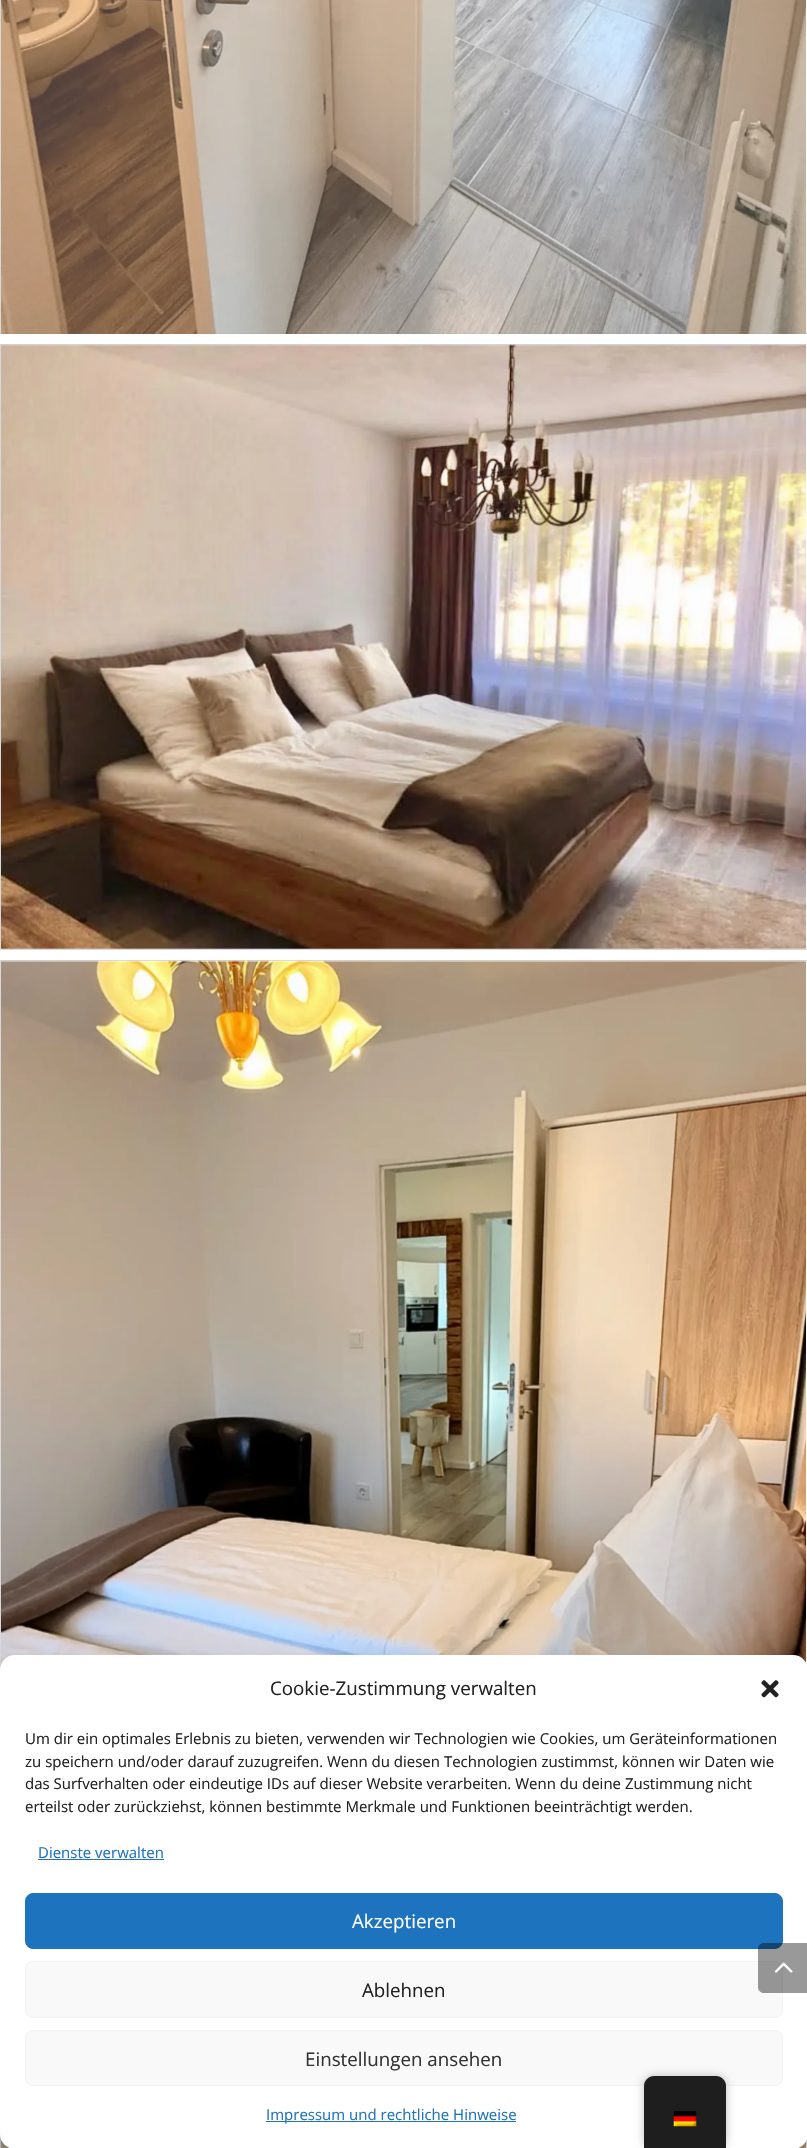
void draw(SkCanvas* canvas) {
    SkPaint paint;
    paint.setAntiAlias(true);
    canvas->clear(0xFFFFFFFF);
    paint.setStyle(SkPaint::kStroke_Style);
    paint.setStrokeWidth(1);
    paint.setColor(0xFFD8D8D8);
    canvas->drawRect(SkRect::MakeXYWH(0.5f, -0.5f, 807, 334), paint);
    canvas->drawImageRect(SkImages::DeferredFromEncodedData(SkData::MakeFromFileName("img1.png")), SkRect::MakeXYWH(1, 0, 805, 334), SkSamplingOptions());
    canvas->drawRect(SkRect::MakeXYWH(0.5f, 344.5f, 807, 605), paint);
    canvas->drawImageRect(SkImages::DeferredFromEncodedData(SkData::MakeFromFileName("img2.png")), SkRect::MakeXYWH(1, 344, 805, 605), SkSamplingOptions());
    canvas->drawRect(SkRect::MakeXYWH(0.5f, 960.5f, 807, 1075), paint);
    canvas->drawImageRect(SkImages::DeferredFromEncodedData(SkData::MakeFromFileName("img3.png")), SkRect::MakeXYWH(1, 960, 805, 705), SkSamplingOptions());
    canvas->drawRect(SkRect::MakeXYWH(0.5f, 2046.5f, 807, 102), paint);
    canvas->drawImageRect(SkImages::DeferredFromEncodedData(SkData::MakeFromFileName("img4.png")), SkRect::MakeXYWH(1, 2139, 805, 9), SkSamplingOptions());
    paint.setStyle(SkPaint::kFill_Style);
    paint.setColor(0x3B000000);
    paint.setMaskFilter(SkMaskFilter::MakeBlur(kNormal_SkBlurStyle, 4));
    canvas->drawRoundRect(SkRect::MakeXYWH(0, 1663, 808, 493), 15, 15, paint);
    paint.setMaskFilter(nullptr);
    paint.setColor(0x30000000);
    paint.setMaskFilter(SkMaskFilter::MakeBlur(kNormal_SkBlurStyle, 12.5f));
    canvas->drawRoundRect(SkRect::MakeXYWH(0, 1668, 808, 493), 15, 15, paint);
    paint.setMaskFilter(nullptr);
    paint.setColor(0xFFFFFFFF);
    canvas->drawRoundRect(SkRect::MakeXYWH(0, 1655, 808, 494), 15, 15, paint);
    SkFont font1(fontMgr->matchFamilyStyle("Open Sans", SkFontStyle::Normal()), 18.75f);
    font1.setSubpixel(true);
    paint.setColor(0xFF222222);
    canvas->drawString("Cookie-Zustimmung verwalten", 270, 1695, font1, paint);
    canvas->drawImageRect(SkImages::DeferredFromEncodedData(SkData::MakeFromFileName("img5.png")), SkRect::MakeXYWH(761, 1680, 18, 18), SkSamplingOptions());
    SkFont font2(fontMgr->matchFamilyStyle("Open Sans", SkFontStyle::Normal()), 15);
    font2.setSubpixel(true);
    canvas->drawString("Um dir ein optimales Erlebnis zu bieten, verwenden wir Technologien wie Cookies, um Geräteinformationen", 25, 1744, font2, paint);
    canvas->drawString("zu speichern und/oder darauf zuzugreifen. Wenn du diesen Technologien zustimmst, können wir Daten wie", 25, 1767, font2, paint);
    canvas->drawString("das Surfverhalten oder eindeutige IDs auf dieser Website verarbeiten. Wenn du deine Zustimmung nicht", 25, 1789, font2, paint);
    canvas->drawString("erteilst oder zurückziehst, können bestimmte Merkmale und Funktionen beeinträchtigt werden.", 25, 1812, font2, paint);
    paint.setColor(0xFF1E73BE);
    canvas->drawString("Dienste verwalten", 38, 1858, font2, paint);
    canvas->drawRect(SkRect::MakeXYWH(38, 1859, 126, 1), paint);
    canvas->drawRoundRect(SkRect::MakeXYWH(25.5f, 1893.5f, 757, 55), 7.5f, 7.5f, paint);
    paint.setStyle(SkPaint::kStroke_Style);
    canvas->drawRoundRect(SkRect::MakeXYWH(25.5f, 1893.5f, 757, 55), 7.5f, 7.5f, paint);
    paint.setStyle(SkPaint::kFill_Style);
    paint.setColor(0xFFFFFFFF);
    canvas->drawString("Akzeptieren", 352, 1928, font1, paint);
    paint.setColor(0xFFF9F9F9);
    canvas->drawRoundRect(SkRect::MakeXYWH(25.5f, 1961.5f, 757, 56), 7.5f, 7.5f, paint);
    paint.setStyle(SkPaint::kStroke_Style);
    paint.setColor(0xFFF2F2F2);
    canvas->drawRoundRect(SkRect::MakeXYWH(25.5f, 1961.5f, 757, 56), 7.5f, 7.5f, paint);
    paint.setStyle(SkPaint::kFill_Style);
    paint.setColor(0xFF222222);
    canvas->drawString("Ablehnen", 362, 1997, font1, paint);
    paint.setColor(0xFFF9F9F9);
    canvas->drawRoundRect(SkRect::MakeXYWH(25.5f, 2030.5f, 757, 55), 7.5f, 7.5f, paint);
    paint.setStyle(SkPaint::kStroke_Style);
    paint.setColor(0xFFF2F2F2);
    canvas->drawRoundRect(SkRect::MakeXYWH(25.5f, 2030.5f, 757, 55), 7.5f, 7.5f, paint);
    paint.setStyle(SkPaint::kFill_Style);
    paint.setColor(0xFF333333);
    canvas->drawString("Einstellungen ansehen", 305, 2066, font1, paint);
    paint.setColor(0xFF1E73BE);
    canvas->drawRect(SkRect::MakeXYWH(266, 2121, 250, 1), paint);
    canvas->drawString("Impressum und rechtliche Hinweise", 266, 2120, font2, paint);
    paint.setColor(0x66000000);
    canvas->drawPath(SkPathBuilder().moveTo(764, 1943).lineTo(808, 1943).lineTo(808, 1993).lineTo(764, 1993).cubicTo(760.5f, 1993, 758, 1990.5f, 758, 1987).lineTo(758, 1949).cubicTo(758, 1945.5f, 760.5f, 1943, 764, 1943).close().detach(), paint);
    canvas->drawImageRect(SkImages::DeferredFromEncodedData(SkData::MakeFromFileName("img6.png")), SkRect::MakeXYWH(774, 1962, 19, 11), SkSamplingOptions());
    paint.setColor(0x40000000);
    paint.setMaskFilter(SkMaskFilter::MakeBlur(kNormal_SkBlurStyle, 5));
    canvas->drawRoundRect(SkRect::MakeXYWH(644, 2076, 82, 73), 10, 10, paint);
    paint.setMaskFilter(nullptr);
    paint.setColor(0xFF1E1E1E);
    canvas->drawPath(SkPathBuilder().moveTo(654, 2076).lineTo(716, 2076).cubicTo(721.5f, 2076, 726, 2080.5f, 726, 2086).lineTo(726, 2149).lineTo(644, 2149).lineTo(644, 2086).cubicTo(644, 2080.5f, 648.5f, 2076, 654, 2076).close().detach(), paint);
    canvas->drawImageRect(SkImages::DeferredFromEncodedData(SkData::MakeFromFileName("img7.png")), SkRect::MakeXYWH(673, 2111, 24, 16), SkSamplingOptions());
}
